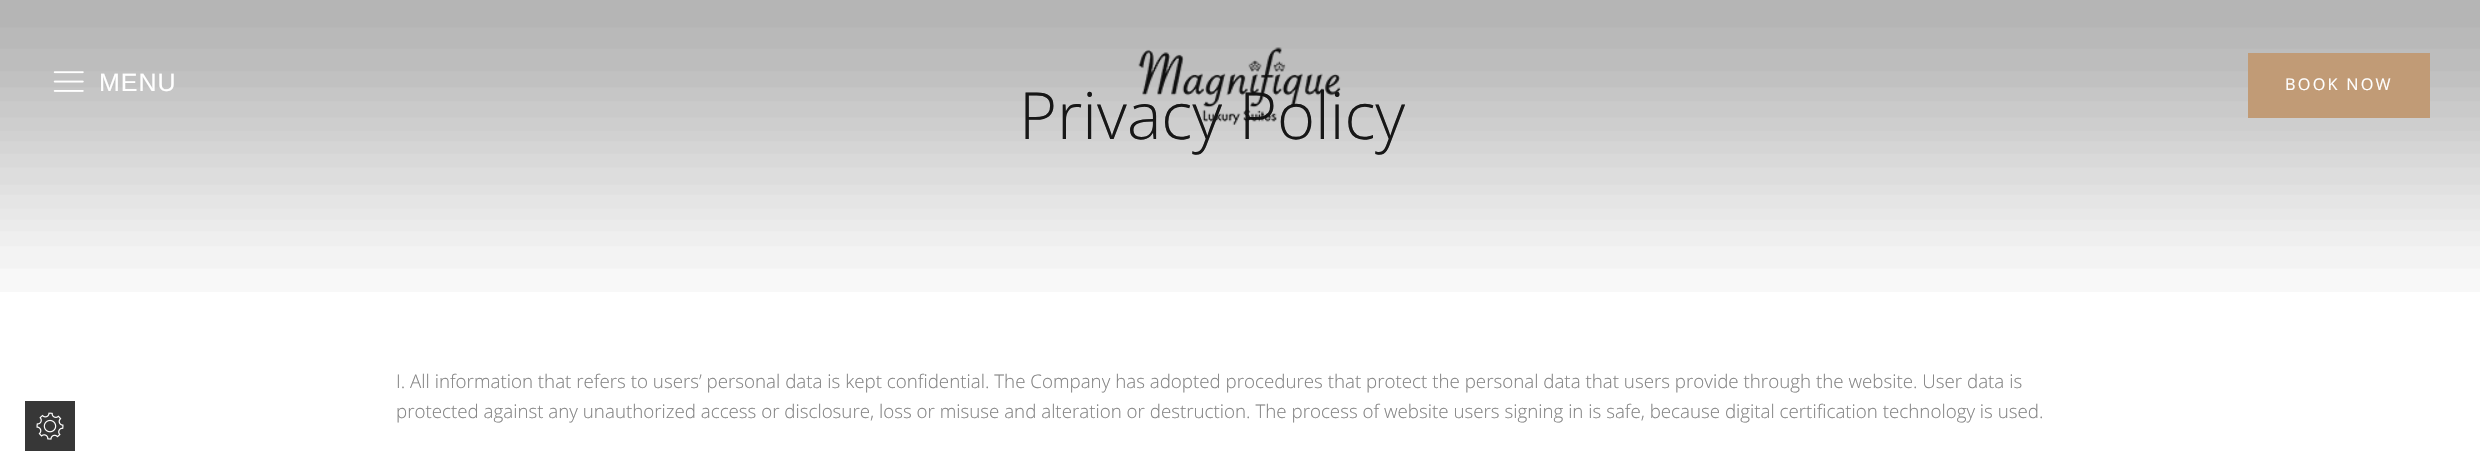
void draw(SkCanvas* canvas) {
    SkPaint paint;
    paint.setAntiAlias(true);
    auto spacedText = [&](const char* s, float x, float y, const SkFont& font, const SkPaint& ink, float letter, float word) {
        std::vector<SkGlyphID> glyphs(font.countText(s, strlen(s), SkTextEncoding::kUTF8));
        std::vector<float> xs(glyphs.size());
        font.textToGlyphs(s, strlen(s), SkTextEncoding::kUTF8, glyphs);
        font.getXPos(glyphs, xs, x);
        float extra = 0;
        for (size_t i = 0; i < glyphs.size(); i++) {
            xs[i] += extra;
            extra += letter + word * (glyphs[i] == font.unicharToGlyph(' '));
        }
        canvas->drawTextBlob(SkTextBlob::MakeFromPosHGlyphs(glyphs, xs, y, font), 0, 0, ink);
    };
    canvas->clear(0xFFFFFFFF);
    paint.setColor(0xFF373737);
    canvas->drawRect(SkRect::MakeXYWH(25, 401, 50, 50), paint);
    canvas->drawImageRect(SkImages::DeferredFromEncodedData(SkData::MakeFromFileName("img1.png")), SkRect::MakeXYWH(36, 412, 28, 28), SkSamplingOptions());
    SkFont font1(fontMgr->matchFamilyStyle("Open Sans", SkFontStyle(300, SkFontStyle::kNormal_Width, SkFontStyle::kUpright_Slant)), 65);
    font1.setSubpixel(true);
    paint.setColor(0xFF1C1C1C);
    canvas->drawString("Privacy Policy", 1019, 139, font1, paint);
    canvas->drawImageRect(SkImages::DeferredFromEncodedData(SkData::MakeFromFileName("img2.png")), SkRect::MakeXYWH(0, 0, 2480, 292), SkSamplingOptions());
    canvas->drawImageRect(SkImages::DeferredFromEncodedData(SkData::MakeFromFileName("img3.png")), SkRect::MakeXYWH(53, 71, 31, 21), SkSamplingOptions());
    SkFont font2(fontMgr->matchFamilyStyle("Liberation Sans", SkFontStyle::Normal()), 25);
    font2.setSubpixel(true);
    paint.setColor(0xFFFFFFFF);
    spacedText("MENU", 99, 91, font2, paint, 1, 0);
    canvas->drawImageRect(SkImages::DeferredFromEncodedData(SkData::MakeFromFileName("img4.png")), SkRect::MakeXYWH(1138, 47, 203, 78), SkSamplingOptions());
    paint.setColor(0xFFC19B76);
    canvas->drawRect(SkRect::MakeXYWH(2248, 53, 182, 65), paint);
    SkFont font3(fontMgr->matchFamilyStyle("Open Sans", SkFontStyle::Normal()), 16.25f);
    font3.setSubpixel(true);
    paint.setColor(0xFFFFFFFF);
    spacedText("BOOK NOW", 2285, 90, font3, paint, 2.25f, 0);
    SkFont font4(fontMgr->matchFamilyStyle("Open Sans", SkFontStyle(300, SkFontStyle::kNormal_Width, SkFontStyle::kUpright_Slant)), 18.75f);
    font4.setSubpixel(true);
    paint.setColor(0xFF858585);
    canvas->drawString("I. All information that refers to users’ personal data is kept confidential. The Company has adopted procedures that protect the personal data that users provide through the website. User data is", 396, 388, font4, paint);
    canvas->drawString("protected against any unauthorized access or disclosure, loss or misuse and alteration or destruction. The process of website users signing in is safe, because digital certification technology is used.", 396, 418, font4, paint);
}
